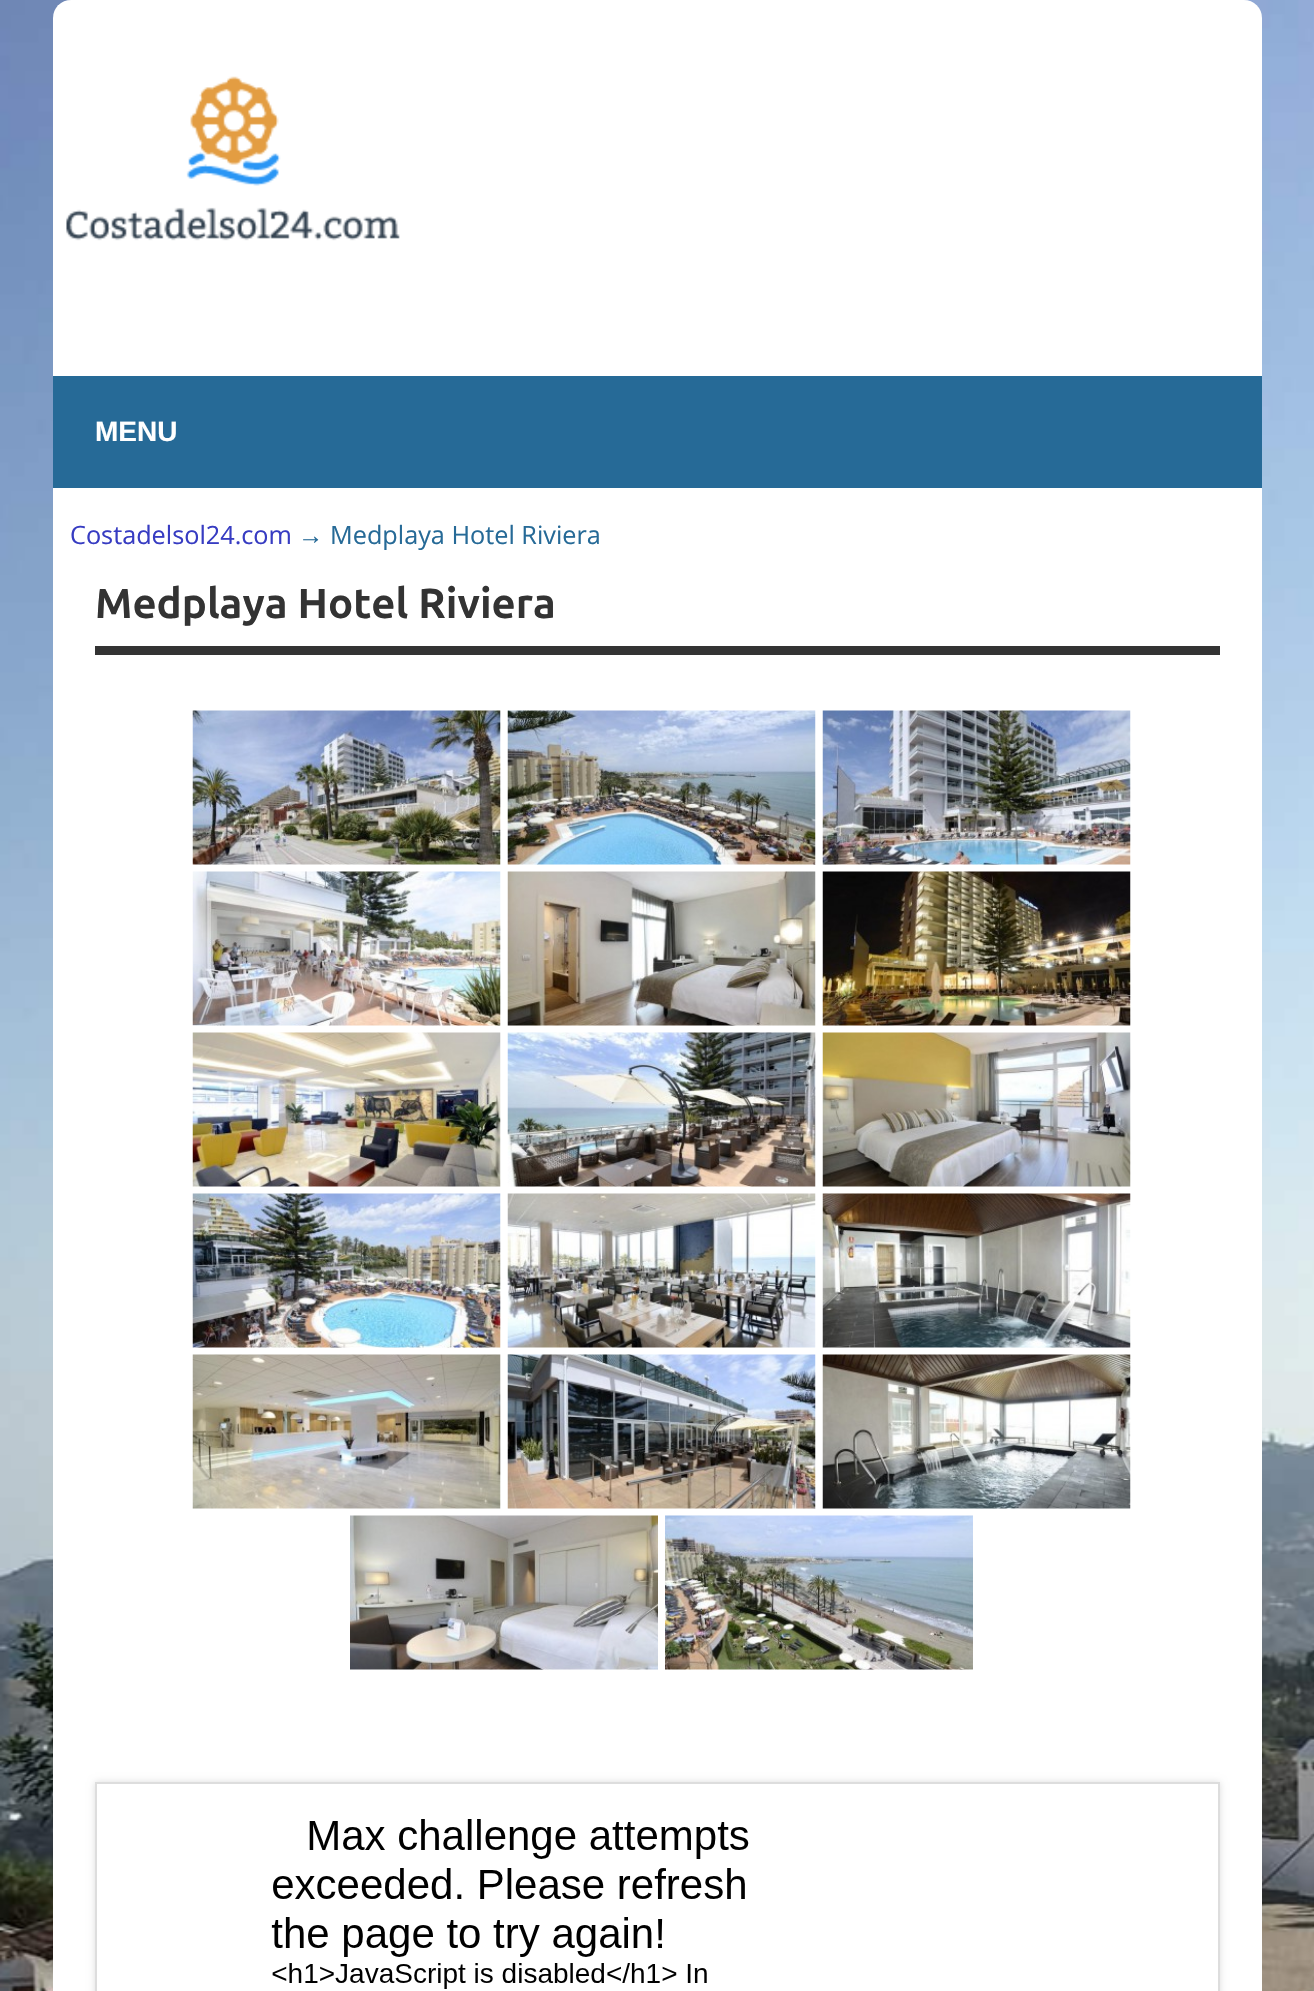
void draw(SkCanvas* canvas) {
    SkPaint paint;
    paint.setAntiAlias(true);
    canvas->clear(0xFFFFFFFF);
    canvas->drawImageRect(SkImages::DeferredFromEncodedData(SkData::MakeFromFileName("img1.png")), SkRect::MakeXYWH(0, 0, 1314, 1991), SkSamplingOptions());
    paint.setColor(0xFFFFFFFF);
    canvas->drawRoundRect(SkRect::MakeXYWH(53, 0, 1209, 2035), 44, 44, paint);
    canvas->drawRoundRect(SkRect::MakeXYWH(53, 0, 1209, 376), 18, 18, paint);
    canvas->drawImageRect(SkImages::DeferredFromEncodedData(SkData::MakeFromFileName("img2.png")), SkRect::MakeXYWH(57, 5, 343, 236), SkSamplingOptions());
    paint.setColor(0xFF266A97);
    canvas->drawRect(SkRect::MakeXYWH(53, 376, 1209, 112), paint);
    SkFont font1(fontMgr->matchFamilyStyle("Liberation Sans", SkFontStyle::Bold()), 28);
    font1.setSubpixel(true);
    paint.setColor(0xFFFFFFFF);
    canvas->drawString("MENU", 95, 441, font1, paint);
    SkFont font2(fontMgr->matchFamilyStyle("Open Sans", SkFontStyle::Normal()), 25.25f);
    font2.setSubpixel(true);
    paint.setColor(0xFF373CC2);
    canvas->drawString("Costadelsol24.com", 70, 544, font2, paint);
    SkFont font3(fontMgr->matchFamilyStyle("Liberation Sans", SkFontStyle::Normal()), 25.25f);
    font3.setSubpixel(true);
    paint.setColor(0xFF266A97);
    canvas->drawString("→", 298, 544, font3, paint);
    canvas->drawString("Medplaya Hotel Riviera", 330, 544, font2, paint);
    paint.setColor(0xFF333333);
    canvas->drawRect(SkRect::MakeXYWH(95, 646, 1125, 9), paint);
    SkFont font4(fontMgr->matchFamilyStyle("Ubuntu", SkFontStyle::Bold()), 42);
    font4.setSubpixel(true);
    canvas->drawString("Medplaya Hotel Riviera", 95, 618, font4, paint);
    canvas->drawImageRect(SkImages::DeferredFromEncodedData(SkData::MakeFromFileName("img3.png")), SkRect::MakeXYWH(192, 710, 309, 155), SkSamplingOptions());
    canvas->drawImageRect(SkImages::DeferredFromEncodedData(SkData::MakeFromFileName("img4.png")), SkRect::MakeXYWH(507, 710, 309, 155), SkSamplingOptions());
    canvas->drawImageRect(SkImages::DeferredFromEncodedData(SkData::MakeFromFileName("img5.png")), SkRect::MakeXYWH(822, 710, 309, 155), SkSamplingOptions());
    canvas->drawImageRect(SkImages::DeferredFromEncodedData(SkData::MakeFromFileName("img6.png")), SkRect::MakeXYWH(192, 871, 309, 155), SkSamplingOptions());
    canvas->drawImageRect(SkImages::DeferredFromEncodedData(SkData::MakeFromFileName("img7.png")), SkRect::MakeXYWH(507, 871, 309, 155), SkSamplingOptions());
    canvas->drawImageRect(SkImages::DeferredFromEncodedData(SkData::MakeFromFileName("img8.png")), SkRect::MakeXYWH(822, 871, 309, 155), SkSamplingOptions());
    canvas->drawImageRect(SkImages::DeferredFromEncodedData(SkData::MakeFromFileName("img9.png")), SkRect::MakeXYWH(192, 1032, 309, 155), SkSamplingOptions());
    canvas->drawImageRect(SkImages::DeferredFromEncodedData(SkData::MakeFromFileName("img10.png")), SkRect::MakeXYWH(507, 1032, 309, 155), SkSamplingOptions());
    canvas->drawImageRect(SkImages::DeferredFromEncodedData(SkData::MakeFromFileName("img11.png")), SkRect::MakeXYWH(822, 1032, 309, 155), SkSamplingOptions());
    canvas->drawImageRect(SkImages::DeferredFromEncodedData(SkData::MakeFromFileName("img12.png")), SkRect::MakeXYWH(192, 1193, 309, 155), SkSamplingOptions());
    canvas->drawImageRect(SkImages::DeferredFromEncodedData(SkData::MakeFromFileName("img13.png")), SkRect::MakeXYWH(507, 1193, 309, 155), SkSamplingOptions());
    canvas->drawImageRect(SkImages::DeferredFromEncodedData(SkData::MakeFromFileName("img14.png")), SkRect::MakeXYWH(822, 1193, 309, 155), SkSamplingOptions());
    canvas->drawImageRect(SkImages::DeferredFromEncodedData(SkData::MakeFromFileName("img15.png")), SkRect::MakeXYWH(192, 1354, 309, 155), SkSamplingOptions());
    canvas->drawImageRect(SkImages::DeferredFromEncodedData(SkData::MakeFromFileName("img16.png")), SkRect::MakeXYWH(507, 1354, 309, 155), SkSamplingOptions());
    canvas->drawImageRect(SkImages::DeferredFromEncodedData(SkData::MakeFromFileName("img17.png")), SkRect::MakeXYWH(822, 1354, 309, 155), SkSamplingOptions());
    canvas->drawImageRect(SkImages::DeferredFromEncodedData(SkData::MakeFromFileName("img18.png")), SkRect::MakeXYWH(350, 1515, 308, 155), SkSamplingOptions());
    canvas->drawImageRect(SkImages::DeferredFromEncodedData(SkData::MakeFromFileName("img19.png")), SkRect::MakeXYWH(665, 1515, 308, 155), SkSamplingOptions());
    paint.setColor(0xFFDDDDDD);
    paint.setMaskFilter(SkMaskFilter::MakeBlur(kNormal_SkBlurStyle, 3.5f));
    canvas->drawRect(SkRect::MakeXYWH(95, 1782, 1125, 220), paint);
    paint.setMaskFilter(nullptr);
    paint.setColor(0xFFFFFFFF);
    canvas->drawRect(SkRect::MakeXYWH(96, 1783, 1123, 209), paint);
    paint.setStyle(SkPaint::kStroke_Style);
    paint.setStrokeWidth(2);
    paint.setColor(0xFFDDDDDD);
    canvas->drawRect(SkRect::MakeXYWH(96, 1783, 1123, 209), paint);
    canvas->drawImageRect(SkImages::DeferredFromEncodedData(SkData::MakeFromFileName("img20.png")), SkRect::MakeXYWH(271, 1819, 478, 170), SkSamplingOptions());
}
